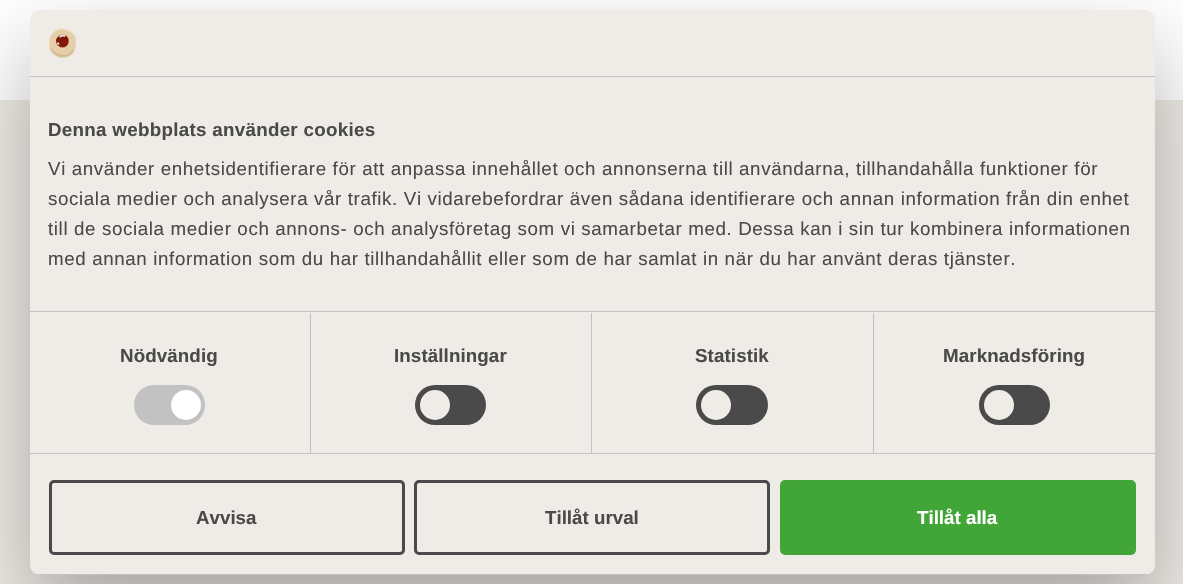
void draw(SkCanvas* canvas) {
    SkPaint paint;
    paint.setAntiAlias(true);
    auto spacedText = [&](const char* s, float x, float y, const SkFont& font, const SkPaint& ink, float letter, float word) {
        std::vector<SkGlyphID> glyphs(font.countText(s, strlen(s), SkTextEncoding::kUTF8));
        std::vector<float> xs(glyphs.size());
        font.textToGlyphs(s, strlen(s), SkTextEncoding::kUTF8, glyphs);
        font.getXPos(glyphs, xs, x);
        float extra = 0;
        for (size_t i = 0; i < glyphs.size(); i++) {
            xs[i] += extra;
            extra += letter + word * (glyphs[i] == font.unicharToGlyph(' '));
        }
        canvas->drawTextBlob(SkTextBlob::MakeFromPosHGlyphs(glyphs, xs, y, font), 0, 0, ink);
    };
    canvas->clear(0xFFFFFFFF);
    paint.setColor(0xFFEFECE7);
    canvas->drawRect(SkRect::MakeXYWH(0, 100, 1183, 484), paint);
    paint.setColor(0x4D000000);
    paint.setMaskFilter(SkMaskFilter::MakeBlur(kNormal_SkBlurStyle, 42.5f));
    canvas->drawRoundRect(SkRect::MakeXYWH(30, 50, 1125, 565), 10, 10, paint);
    paint.setMaskFilter(nullptr);
    paint.setColor(0xFFEFECE7);
    canvas->drawRoundRect(SkRect::MakeXYWH(30, 10, 1125, 565), 10, 10, paint);
    paint.setColor(0xFFC2C2C2);
    canvas->drawRect(SkRect::MakeXYWH(30, 76, 1125, 1), paint);
    canvas->drawImageRect(SkImages::DeferredFromEncodedData(SkData::MakeFromFileName("img1.png")), SkRect::MakeXYWH(48, 28, 28, 30), SkSamplingOptions());
    canvas->drawRect(SkRect::MakeXYWH(30, 311, 1125, 1), paint);
    SkFont font1(fontMgr->matchFamilyStyle("Liberation Sans", SkFontStyle::Bold()), 18.75f);
    font1.setSubpixel(true);
    paint.setColor(0xFF4A4A4A);
    spacedText("Denna webbplats använder cookies", 48, 136, font1, paint, 0.3f, 0);
    SkFont font2(fontMgr->matchFamilyStyle("Liberation Sans", SkFontStyle::Normal()), 18.75f);
    font2.setSubpixel(true);
    spacedText("Vi använder enhetsidentifierare för att anpassa innehållet och annonserna till användarna, tillhandahålla funktioner för", 48, 175, font2, paint, 0.62f, 0);
    spacedText("sociala medier och analysera vår trafik. Vi vidarebefordrar även sådana identifierare och annan information från din enhet", 48, 205, font2, paint, 0.62f, 0);
    spacedText("till de sociala medier och annons- och analysföretag som vi samarbetar med. Dessa kan i sin tur kombinera informationen", 48, 235, font2, paint, 0.62f, 0);
    spacedText("med annan information som du har tillhandahållit eller som de har samlat in när du har använt deras tjänster.", 48, 265, font2, paint, 0.62f, 0);
    paint.setColor(0xFFC2C2C2);
    canvas->drawRect(SkRect::MakeXYWH(30, 453, 1125, 1), paint);
    canvas->drawRect(SkRect::MakeXYWH(310, 313, 1, 140), paint);
    paint.setColor(0xFF4A4A4A);
    spacedText("Nödvändig", 120, 362, font1, paint, 0.1f, 0);
    paint.setColor(0xFFC2C2C2);
    canvas->drawRoundRect(SkRect::MakeXYWH(134, 385, 71, 40), 20, 20, paint);
    paint.setColor(0xFFFFFFFF);
    canvas->drawCircle(186, 405, 15, paint);
    paint.setColor(0xFFC2C2C2);
    canvas->drawRect(SkRect::MakeXYWH(591, 313, 1, 140), paint);
    paint.setColor(0xFF4A4A4A);
    spacedText("Inställningar", 394, 362, font1, paint, 0.1f, 0);
    canvas->drawRoundRect(SkRect::MakeXYWH(415, 385, 71, 40), 20, 20, paint);
    paint.setColor(0xFFEFECE7);
    canvas->drawCircle(435, 405, 15, paint);
    paint.setColor(0xFFC2C2C2);
    canvas->drawRect(SkRect::MakeXYWH(873, 313, 1, 140), paint);
    paint.setColor(0xFF4A4A4A);
    spacedText("Statistik", 695, 362, font1, paint, 0.1f, 0);
    canvas->drawRoundRect(SkRect::MakeXYWH(696, 385, 72, 40), 20, 20, paint);
    paint.setColor(0xFFEFECE7);
    canvas->drawCircle(716, 405, 15, paint);
    paint.setColor(0xFF4A4A4A);
    spacedText("Marknadsföring", 943, 362, font1, paint, 0.1f, 0);
    canvas->drawRoundRect(SkRect::MakeXYWH(979, 385, 71, 40), 20, 20, paint);
    paint.setColor(0xFFEFECE7);
    canvas->drawCircle(999, 405, 15, paint);
    canvas->save();
    canvas->clipPath(SkPathBuilder().moveTo(40, 10).lineTo(1145, 10).cubicTo(1150.5f, 10, 1155, 14.5f, 1155, 20).lineTo(1155, 565).cubicTo(1155, 570.5f, 1150.5f, 575, 1145, 575).lineTo(40, 575).cubicTo(34.5f, 575, 30, 570.5f, 30, 565).lineTo(30, 20).cubicTo(30, 14.5f, 34.5f, 10, 40, 10).close().detach(), true);
    paint.setColor(0xFFC2C2C2);
    canvas->drawRect(SkRect::MakeXYWH(30, 574, 1125, 1), paint);
    canvas->restore();
    paint.setStyle(SkPaint::kStroke_Style);
    paint.setStrokeWidth(3);
    paint.setColor(0xFF4A4A4A);
    canvas->drawRoundRect(SkRect::MakeXYWH(50.5f, 481.5f, 353, 72), 3.5f, 3.5f, paint);
    paint.setStyle(SkPaint::kFill_Style);
    canvas->drawString("Avvisa", 196, 524, font1, paint);
    paint.setStyle(SkPaint::kStroke_Style);
    canvas->drawRoundRect(SkRect::MakeXYWH(415.5f, 481.5f, 353, 72), 3.5f, 3.5f, paint);
    paint.setStyle(SkPaint::kFill_Style);
    canvas->drawString("Tillåt urval", 545, 524, font1, paint);
    paint.setColor(0xFF42A537);
    canvas->drawRoundRect(SkRect::MakeXYWH(781.5f, 481.5f, 353, 72), 3.5f, 3.5f, paint);
    paint.setStyle(SkPaint::kStroke_Style);
    canvas->drawRoundRect(SkRect::MakeXYWH(781.5f, 481.5f, 353, 72), 3.5f, 3.5f, paint);
    paint.setStyle(SkPaint::kFill_Style);
    paint.setColor(0xFFFFFFFF);
    canvas->drawString("Tillåt alla", 917, 524, font1, paint);
}
